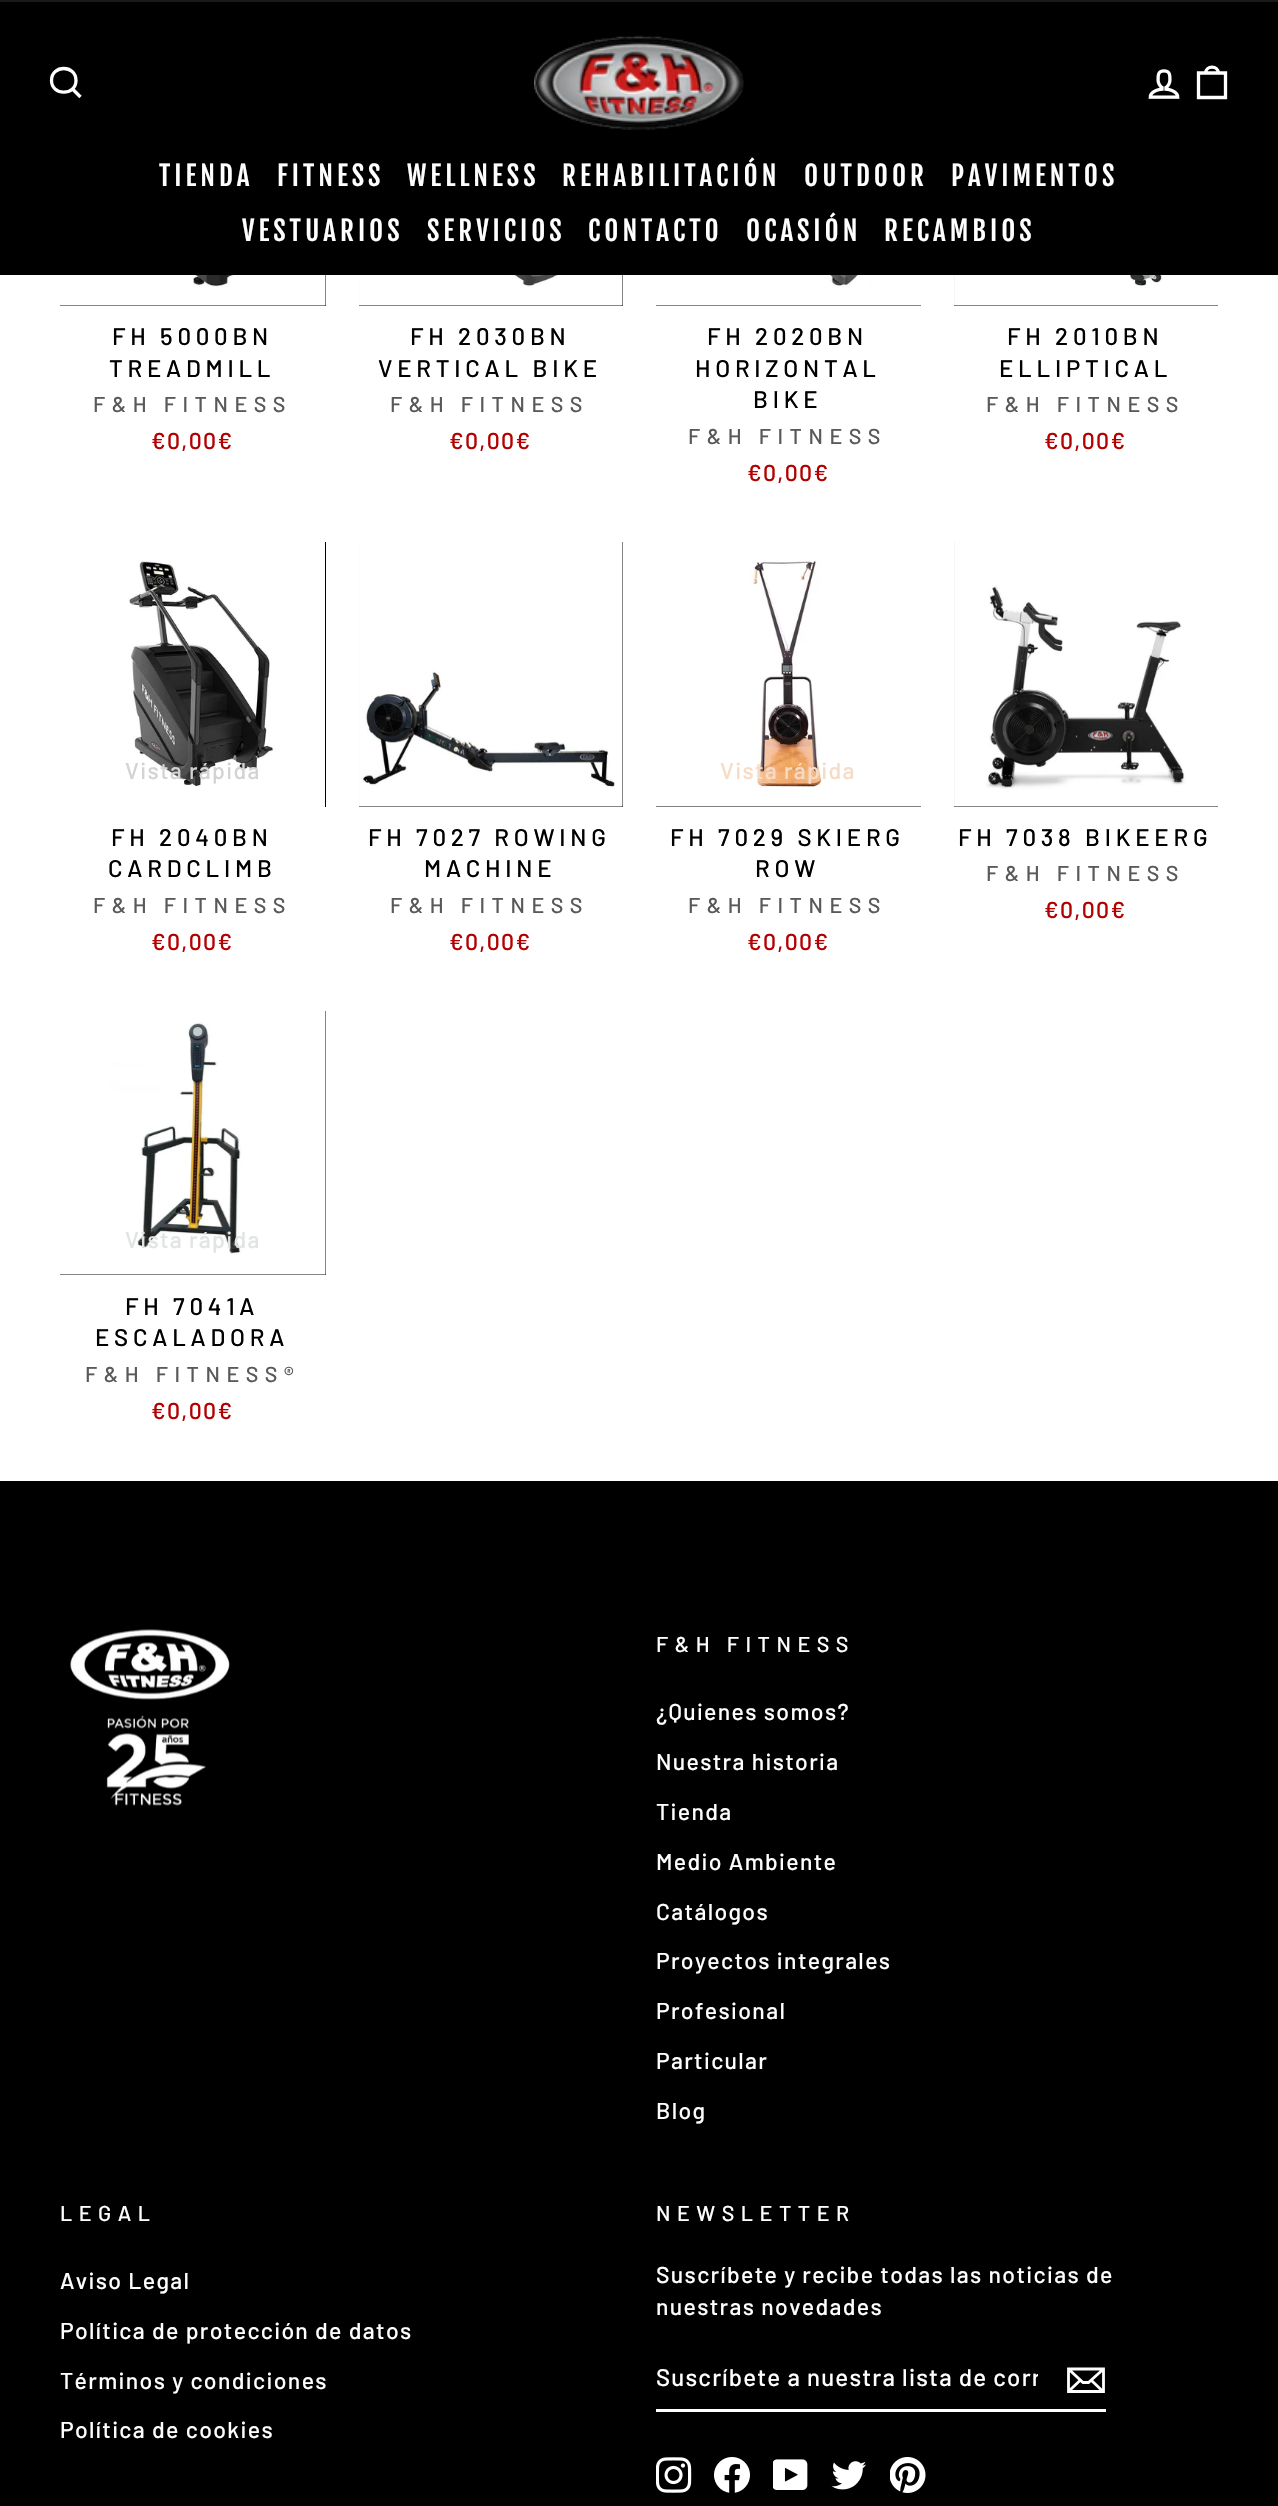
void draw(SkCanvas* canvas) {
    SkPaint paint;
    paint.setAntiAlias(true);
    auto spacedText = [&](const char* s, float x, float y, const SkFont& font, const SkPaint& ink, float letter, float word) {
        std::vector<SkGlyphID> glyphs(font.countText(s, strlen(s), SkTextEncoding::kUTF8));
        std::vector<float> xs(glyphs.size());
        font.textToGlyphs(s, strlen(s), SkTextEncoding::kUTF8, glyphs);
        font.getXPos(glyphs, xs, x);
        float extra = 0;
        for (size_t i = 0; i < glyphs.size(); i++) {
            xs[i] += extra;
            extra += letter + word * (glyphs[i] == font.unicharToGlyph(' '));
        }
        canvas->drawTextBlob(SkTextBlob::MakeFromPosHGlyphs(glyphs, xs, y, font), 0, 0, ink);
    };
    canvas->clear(0xFFFFFFFF);
    paint.setColor(0xFF000000);
    canvas->drawRect(SkRect::MakeXYWH(0, 2, 1278, 273), paint);
    paint.setColor(0xFF1A1A1A);
    canvas->drawRect(SkRect::MakeXYWH(0, 0, 1278, 2), paint);
    paint.setStyle(SkPaint::kStroke_Style);
    paint.setStrokeWidth(3.3f);
    paint.setColor(0xFFFFFFFF);
    canvas->drawPath(SkPathBuilder().moveTo(76, 80.5f).cubicTo(76, 96, 51.5f, 96, 51.5f, 80.5f).cubicTo(51.5f, 64.5f, 76, 64.5f, 76, 80.5f).close().moveTo(80.5f, 97).lineTo(72.5f, 89).detach(), paint);
    canvas->drawImageRect(SkImages::DeferredFromEncodedData(SkData::MakeFromFileName("img1.png")), SkRect::MakeXYWH(534, 35, 210, 95), SkSamplingOptions());
    canvas->drawImageRect(SkImages::DeferredFromEncodedData(SkData::MakeFromFileName("img2.png")), SkRect::MakeXYWH(1148, 69, 32, 30), SkSamplingOptions());
    canvas->drawPath(SkPathBuilder().moveTo(1198.5f, 73).lineTo(1225.5f, 73).lineTo(1225.5f, 97.5f).lineTo(1198.5f, 97.5f).close().moveTo(1205.5f, 73.5f).cubicTo(1205.5f, 65, 1218.5f, 65, 1218.5f, 73.5f).detach(), paint);
    SkFont font1(fontMgr->matchFamilyStyle("Fjalla One", SkFontStyle::Normal()), 27);
    font1.setSubpixel(true);
    paint.setStyle(SkPaint::kFill_Style);
    spacedText("TIENDA", 159, 186, font1, paint, 4, 0);
    spacedText("FITNESS", 277, 186, font1, paint, 4, 0);
    spacedText("WELLNESS", 407, 186, font1, paint, 4, 0);
    spacedText("REHABILITACIÓN", 562, 186, font1, paint, 4, 0);
    spacedText("OUTDOOR", 804, 186, font1, paint, 4, 0);
    spacedText("PAVIMENTOS", 951, 186, font1, paint, 4, 0);
    spacedText("VESTUARIOS", 242, 241, font1, paint, 4, 0);
    spacedText("SERVICIOS", 427, 241, font1, paint, 4, 0);
    spacedText("CONTACTO", 588, 241, font1, paint, 4, 0);
    spacedText("OCASIÓN", 746, 241, font1, paint, 4, 0);
    spacedText("RECAMBIOS", 884, 241, font1, paint, 4, 0);
    paint.setColor(0xFF000000);
    canvas->drawRect(SkRect::MakeXYWH(60, 275, 266, 31), paint);
    canvas->drawImageRect(SkImages::DeferredFromEncodedData(SkData::MakeFromFileName("img3.png")), SkRect::MakeXYWH(60, 275, 266, 31), SkSamplingOptions());
    SkFont font2(fontMgr->matchFamilyStyle("Barlow", SkFontStyle(500, SkFontStyle::kNormal_Width, SkFontStyle::kUpright_Slant)), 24);
    font2.setSubpixel(true);
    spacedText("FH 5000BN", 112, 345, font2, paint, 4.75f, 0);
    spacedText("TREADMILL", 109, 377, font2, paint, 4.75f, 0);
    SkFont font3(fontMgr->matchFamilyStyle("Barlow", SkFontStyle(500, SkFontStyle::kNormal_Width, SkFontStyle::kUpright_Slant)), 21.5f);
    font3.setSubpixel(true);
    paint.setColor(0xFF595959);
    spacedText("F&H FITNESS", 93, 412, font3, paint, 6.5f, 0);
    SkFont font4(fontMgr->matchFamilyStyle("Barlow", SkFontStyle(500, SkFontStyle::kNormal_Width, SkFontStyle::kUpright_Slant)), 23);
    font4.setSubpixel(true);
    paint.setColor(0xFFB30000);
    spacedText("€0,00€", 151, 449, font4, paint, 1.35f, 0);
    paint.setColor(0xFF000000);
    canvas->drawRect(SkRect::MakeXYWH(359, 275, 264, 31), paint);
    canvas->drawImageRect(SkImages::DeferredFromEncodedData(SkData::MakeFromFileName("img4.png")), SkRect::MakeXYWH(359, 275, 264, 31), SkSamplingOptions());
    spacedText("FH 2030BN", 410, 345, font2, paint, 4.75f, 0);
    spacedText("VERTICAL BIKE", 378, 377, font2, paint, 4.75f, 0);
    paint.setColor(0xFF595959);
    spacedText("F&H FITNESS", 390, 412, font3, paint, 6.5f, 0);
    paint.setColor(0xFFB30000);
    spacedText("€0,00€", 449, 449, font4, paint, 1.35f, 0);
    paint.setColor(0xFF000000);
    canvas->drawRect(SkRect::MakeXYWH(656, 305, 265, 1), paint);
    canvas->drawImageRect(SkImages::DeferredFromEncodedData(SkData::MakeFromFileName("img5.png")), SkRect::MakeXYWH(656, 275, 265, 31), SkSamplingOptions());
    spacedText("FH 2020BN", 707, 345, font2, paint, 4.75f, 0);
    spacedText("HORIZONTAL", 695, 377, font2, paint, 4.75f, 0);
    spacedText("BIKE", 753, 408, font2, paint, 4.75f, 0);
    paint.setColor(0xFF595959);
    spacedText("F&H FITNESS", 688, 444, font3, paint, 6.5f, 0);
    paint.setColor(0xFFB30000);
    spacedText("€0,00€", 747, 481, font4, paint, 1.35f, 0);
    paint.setColor(0xFF000000);
    canvas->drawRect(SkRect::MakeXYWH(954, 275, 264, 31), paint);
    canvas->drawImageRect(SkImages::DeferredFromEncodedData(SkData::MakeFromFileName("img6.png")), SkRect::MakeXYWH(954, 275, 264, 31), SkSamplingOptions());
    spacedText("FH 2010BN", 1007, 345, font2, paint, 4.75f, 0);
    spacedText("ELLIPTICAL", 999, 377, font2, paint, 4.75f, 0);
    paint.setColor(0xFF595959);
    spacedText("F&H FITNESS", 986, 412, font3, paint, 6.5f, 0);
    paint.setColor(0xFFB30000);
    spacedText("€0,00€", 1044, 449, font4, paint, 1.35f, 0);
    paint.setColor(0xFF000000);
    canvas->drawRect(SkRect::MakeXYWH(325, 542, 1, 265), paint);
    canvas->drawImageRect(SkImages::DeferredFromEncodedData(SkData::MakeFromFileName("img7.png")), SkRect::MakeXYWH(60, 542, 265, 265), SkSamplingOptions());
    paint.setColor(0xFFD3D3D3);
    spacedText("Vista rápida", 125, 779, font4, paint, 1.35f, 0);
    paint.setColor(0xFF000000);
    spacedText("FH 2040BN", 111, 846, font2, paint, 4.75f, 0);
    spacedText("CARDCLIMB", 108, 877, font2, paint, 4.75f, 0);
    paint.setColor(0xFF595959);
    spacedText("F&H FITNESS", 93, 913, font3, paint, 6.5f, 0);
    paint.setColor(0xFFB30000);
    spacedText("€0,00€", 151, 950, font4, paint, 1.35f, 0);
    paint.setColor(0xFF000000);
    canvas->drawRect(SkRect::MakeXYWH(359, 542, 264, 265), paint);
    canvas->drawImageRect(SkImages::DeferredFromEncodedData(SkData::MakeFromFileName("img8.png")), SkRect::MakeXYWH(359, 542, 264, 265), SkSamplingOptions());
    spacedText("FH 7027 ROWING", 368, 846, font2, paint, 4.75f, 0);
    spacedText("MACHINE", 424, 877, font2, paint, 4.75f, 0);
    paint.setColor(0xFF595959);
    spacedText("F&H FITNESS", 390, 913, font3, paint, 6.5f, 0);
    paint.setColor(0xFFB30000);
    spacedText("€0,00€", 449, 950, font4, paint, 1.35f, 0);
    paint.setColor(0xFF000000);
    canvas->drawRect(SkRect::MakeXYWH(656, 806, 265, 1), paint);
    canvas->drawImageRect(SkImages::DeferredFromEncodedData(SkData::MakeFromFileName("img9.png")), SkRect::MakeXYWH(656, 542, 265, 265), SkSamplingOptions());
    paint.setColor(0xFFF6DCC6);
    spacedText("Vista rápida", 720, 779, font4, paint, 1.35f, 0);
    paint.setColor(0xFF000000);
    spacedText("FH 7029 SKIERG", 670, 846, font2, paint, 4.75f, 0);
    spacedText("ROW", 755, 877, font2, paint, 4.75f, 0);
    paint.setColor(0xFF595959);
    spacedText("F&H FITNESS", 688, 913, font3, paint, 6.5f, 0);
    paint.setColor(0xFFB30000);
    spacedText("€0,00€", 747, 950, font4, paint, 1.35f, 0);
    paint.setColor(0xFF000000);
    canvas->drawRect(SkRect::MakeXYWH(954, 542, 264, 265), paint);
    canvas->drawImageRect(SkImages::DeferredFromEncodedData(SkData::MakeFromFileName("img10.png")), SkRect::MakeXYWH(954, 542, 264, 265), SkSamplingOptions());
    spacedText("FH 7038 BIKEERG", 958, 846, font2, paint, 4.75f, 0);
    paint.setColor(0xFF595959);
    spacedText("F&H FITNESS", 986, 881, font3, paint, 6.5f, 0);
    paint.setColor(0xFFB30000);
    spacedText("€0,00€", 1044, 918, font4, paint, 1.35f, 0);
    paint.setColor(0xFF000000);
    canvas->drawRect(SkRect::MakeXYWH(60, 1011, 266, 264), paint);
    canvas->drawImageRect(SkImages::DeferredFromEncodedData(SkData::MakeFromFileName("img11.png")), SkRect::MakeXYWH(60, 1011, 266, 264), SkSamplingOptions());
    paint.setColor(0xFFE2E3E3);
    spacedText("Vista rápida", 125, 1248, font4, paint, 1.35f, 0);
    paint.setColor(0xFF000000);
    spacedText("FH 7041A", 125, 1315, font2, paint, 4.75f, 0);
    spacedText("ESCALADORA", 95, 1346, font2, paint, 4.75f, 0);
    paint.setColor(0xFF595959);
    spacedText("F&H FITNESS®", 85, 1382, font3, paint, 6.5f, 0);
    paint.setColor(0xFFB30000);
    spacedText("€0,00€", 151, 1419, font4, paint, 1.35f, 0);
    paint.setColor(0xFF000000);
    canvas->drawRect(SkRect::MakeXYWH(0, 1481, 1278, 1025), paint);
    canvas->drawImageRect(SkImages::DeferredFromEncodedData(SkData::MakeFromFileName("img12.png")), SkRect::MakeXYWH(70, 1629, 160, 177), SkSamplingOptions());
    paint.setColor(0xFFFFFFFF);
    spacedText("F&H FITNESS", 656, 1652, font3, paint, 6.5f, 0);
    spacedText("¿Quienes somos?", 656, 1720, font4, paint, 1.35f, 0);
    spacedText("Nuestra historia", 656, 1770, font4, paint, 1.35f, 0);
    spacedText("Tienda", 656, 1820, font4, paint, 1.35f, 0);
    spacedText("Medio Ambiente", 656, 1870, font4, paint, 1.35f, 0);
    spacedText("Catálogos", 656, 1920, font4, paint, 1.35f, 0);
    spacedText("Proyectos integrales", 656, 1969, font4, paint, 1.35f, 0);
    spacedText("Profesional", 656, 2019, font4, paint, 1.35f, 0);
    spacedText("Particular", 656, 2069, font4, paint, 1.35f, 0);
    spacedText("Blog", 656, 2119, font4, paint, 1.35f, 0);
    spacedText("LEGAL", 60, 2221, font3, paint, 6.5f, 0);
    spacedText("Aviso Legal", 60, 2289, font4, paint, 1.35f, 0);
    spacedText("Política de protección de datos", 60, 2339, font4, paint, 1.35f, 0);
    spacedText("Términos y condiciones", 60, 2389, font4, paint, 1.35f, 0);
    spacedText("Política de cookies", 60, 2438, font4, paint, 1.35f, 0);
    spacedText("NEWSLETTER", 656, 2221, font3, paint, 6.5f, 0);
    spacedText("Suscríbete y recibe todas las noticias de", 656, 2283, font4, paint, 1.35f, 0);
    spacedText("nuestras novedades", 656, 2315, font4, paint, 1.35f, 0);
    canvas->drawRect(SkRect::MakeXYWH(656, 2409, 450, 3), paint);
    canvas->save();
    canvas->clipRect(SkRect::MakeXYWH(656, 2363, 382, 28));
    spacedText("Suscríbete a nuestra lista de corr", 656, 2386, font2, paint, 1.2f, 0);
    canvas->restore();
    paint.setStyle(SkPaint::kStroke_Style);
    paint.setStrokeWidth(2.8f);
    canvas->drawPath(SkPathBuilder().moveTo(1103.5f, 2391.5f).lineTo(1068.5f, 2391.5f).lineTo(1068.5f, 2369).lineTo(1103.5f, 2369).close().moveTo(1068.5f, 2369).lineTo(1083, 2382.5f).lineTo(1088.5f, 2382.5f).lineTo(1103.5f, 2369).moveTo(1080.5f, 2380).lineTo(1069, 2391).moveTo(1103, 2391.5f).lineTo(1091, 2380).detach(), paint);
    canvas->drawImageRect(SkImages::DeferredFromEncodedData(SkData::MakeFromFileName("img13.png")), SkRect::MakeXYWH(656, 2457, 36, 36), SkSamplingOptions());
    canvas->drawImageRect(SkImages::DeferredFromEncodedData(SkData::MakeFromFileName("img14.png")), SkRect::MakeXYWH(714, 2457, 36, 36), SkSamplingOptions());
    canvas->drawImageRect(SkImages::DeferredFromEncodedData(SkData::MakeFromFileName("img15.png")), SkRect::MakeXYWH(773, 2459, 35, 31), SkSamplingOptions());
    canvas->drawImageRect(SkImages::DeferredFromEncodedData(SkData::MakeFromFileName("img16.png")), SkRect::MakeXYWH(831, 2461, 35, 29), SkSamplingOptions());
    canvas->drawImageRect(SkImages::DeferredFromEncodedData(SkData::MakeFromFileName("img17.png")), SkRect::MakeXYWH(890, 2457, 36, 36), SkSamplingOptions());
}
